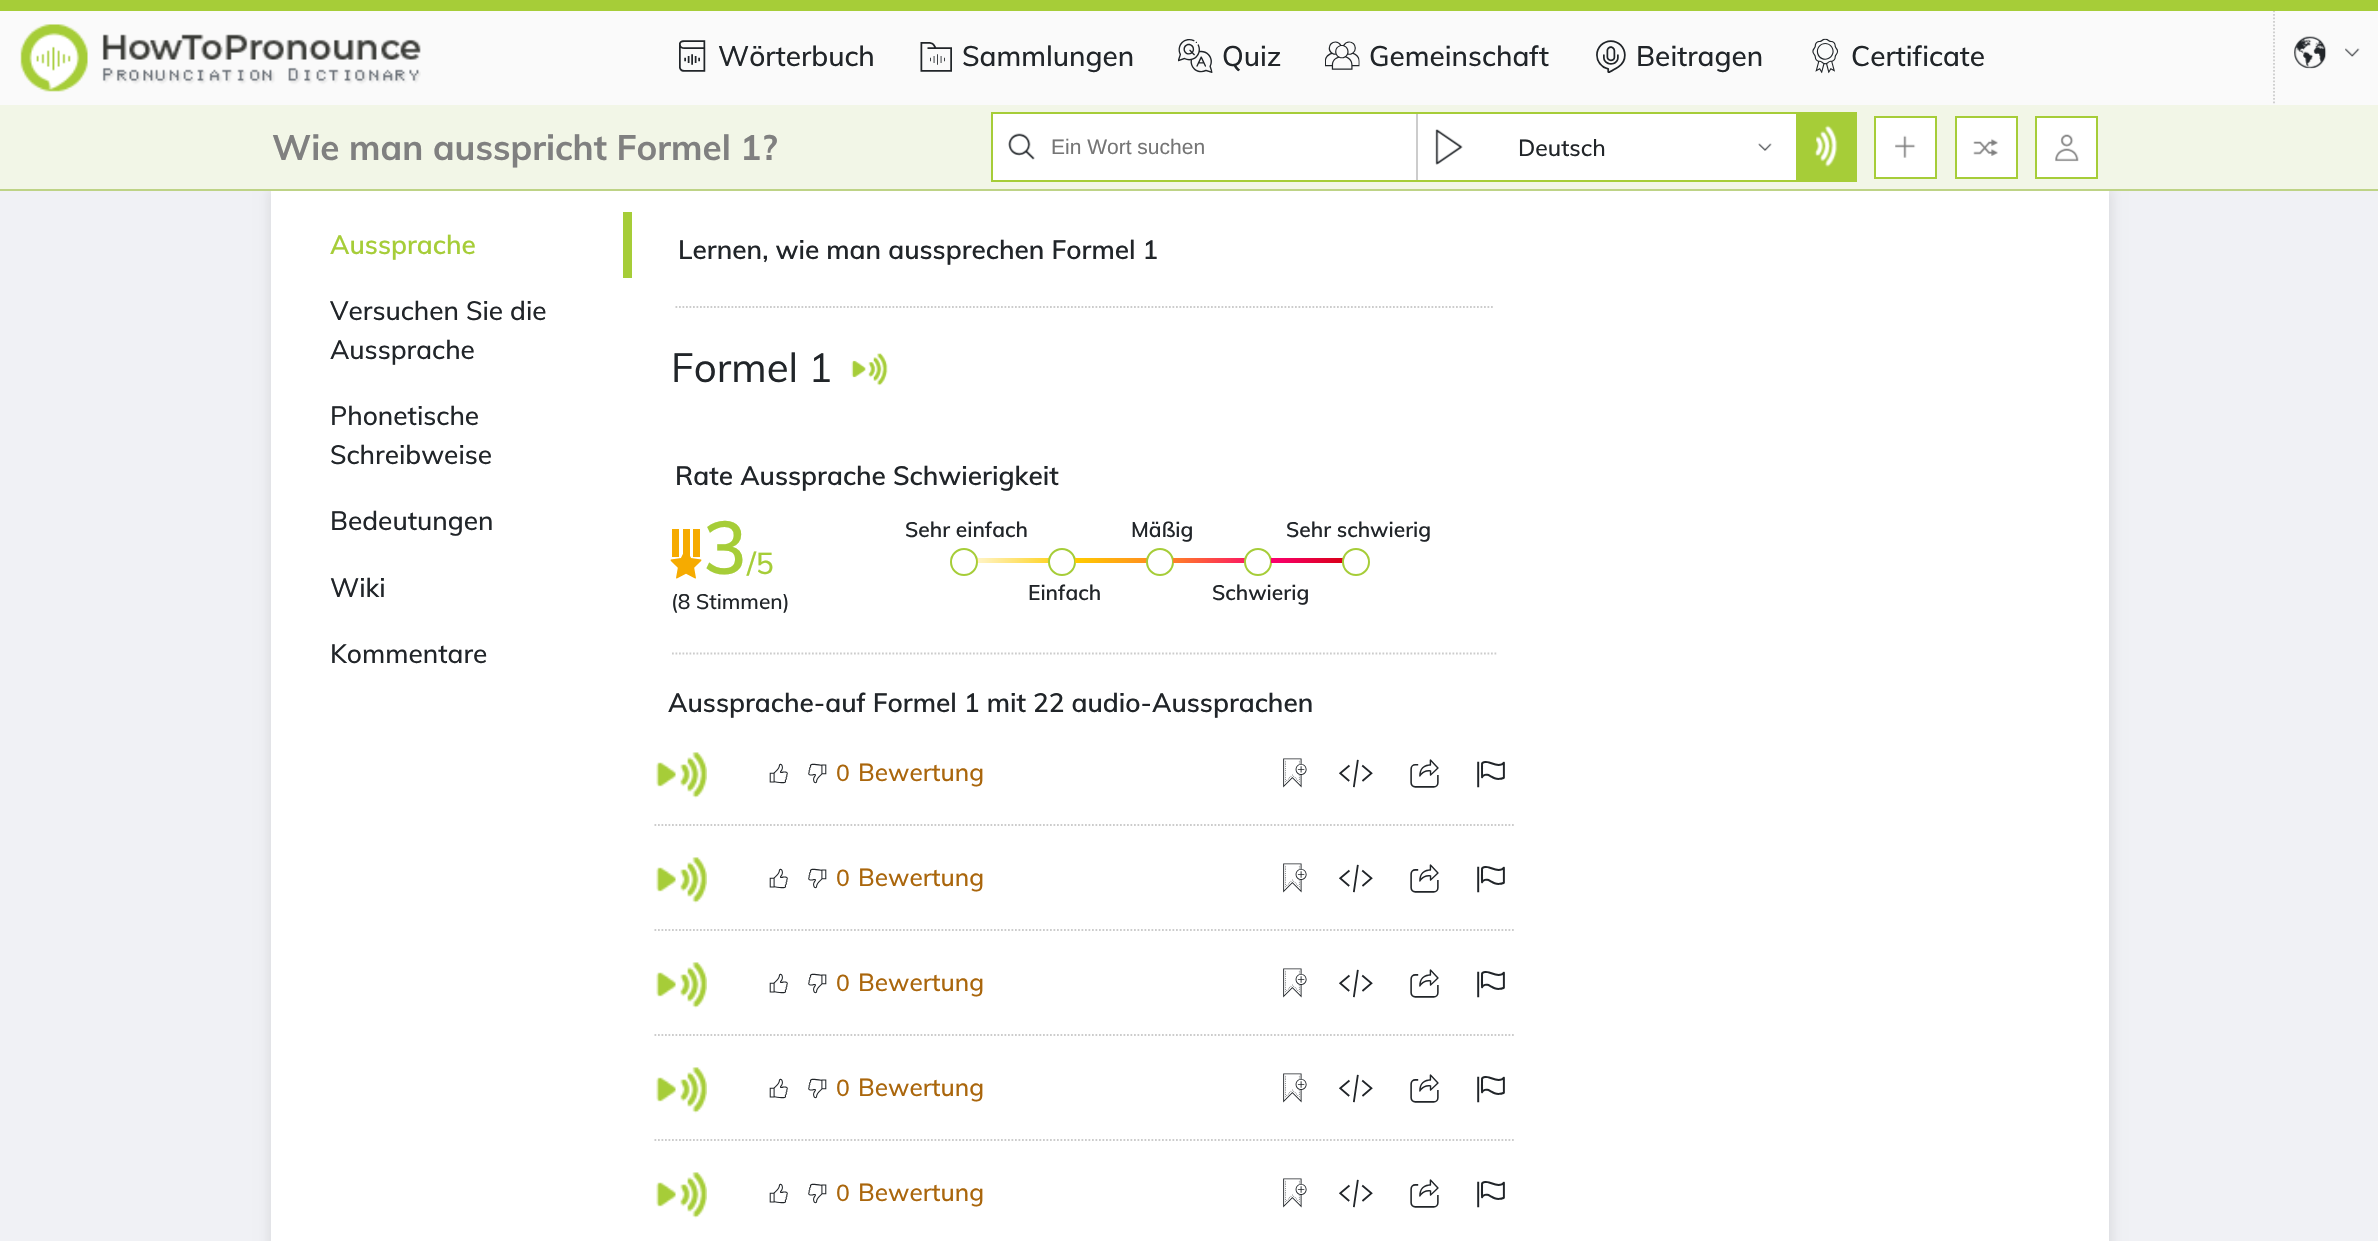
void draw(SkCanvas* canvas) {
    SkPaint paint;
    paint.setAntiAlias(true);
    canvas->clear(0xFFF0F1F5);
    paint.setColor(0xFFFAFAFA);
    canvas->drawRect(SkRect::MakeXYWH(0, 11, 2378, 94), paint);
    paint.setStyle(SkPaint::kStroke_Style);
    paint.setStrokeWidth(1.8f);
    paint.setColor(0xFFCCCCCC);
    paint.setPathEffect(SkDashPathEffect::Make({{1.75f, 1.75f}}, 0));
    canvas->drawPath(SkPathBuilder().moveTo(2274, 0).lineTo(2274, 105).detach(), paint);
    paint.setPathEffect(nullptr);
    paint.setStyle(SkPaint::kFill_Style);
    paint.setColor(0xFFA6CD38);
    canvas->drawRect(SkRect::MakeXYWH(0, 0, 2378, 11), paint);
    canvas->drawImageRect(SkImages::DeferredFromEncodedData(SkData::MakeFromFileName("img1.png")), SkRect::MakeXYWH(20, 24, 401, 68), SkSamplingOptions());
    canvas->drawImageRect(SkImages::DeferredFromEncodedData(SkData::MakeFromFileName("img2.png")), SkRect::MakeXYWH(679, 40, 27, 32), SkSamplingOptions());
    SkFont font1(fontMgr->matchFamilyStyle("Muli", SkFontStyle(500, SkFontStyle::kNormal_Width, SkFontStyle::kUpright_Slant)), 28);
    font1.setSubpixel(true);
    paint.setColor(0xFF212529);
    canvas->drawString("Wörterbuch", 718, 66, font1, paint);
    canvas->drawImageRect(SkImages::DeferredFromEncodedData(SkData::MakeFromFileName("img3.png")), SkRect::MakeXYWH(920, 42, 32, 30), SkSamplingOptions());
    canvas->drawString("Sammlungen", 962, 66, font1, paint);
    canvas->drawImageRect(SkImages::DeferredFromEncodedData(SkData::MakeFromFileName("img4.png")), SkRect::MakeXYWH(1178, 39, 35, 34), SkSamplingOptions());
    canvas->drawString("Quiz", 1222, 66, font1, paint);
    canvas->drawImageRect(SkImages::DeferredFromEncodedData(SkData::MakeFromFileName("img5.png")), SkRect::MakeXYWH(1325, 41, 35, 29), SkSamplingOptions());
    canvas->drawString("Gemeinschaft", 1369, 66, font1, paint);
    canvas->drawImageRect(SkImages::DeferredFromEncodedData(SkData::MakeFromFileName("img6.png")), SkRect::MakeXYWH(1596, 40, 30, 33), SkSamplingOptions());
    canvas->drawString("Beitragen", 1636, 66, font1, paint);
    canvas->drawImageRect(SkImages::DeferredFromEncodedData(SkData::MakeFromFileName("img7.png")), SkRect::MakeXYWH(1812, 38, 27, 36), SkSamplingOptions());
    canvas->drawString("Certificate", 1851, 66, font1, paint);
    canvas->drawImageRect(SkImages::DeferredFromEncodedData(SkData::MakeFromFileName("img8.png")), SkRect::MakeXYWH(2294, 36, 33, 33), SkSamplingOptions());
    canvas->drawImageRect(SkImages::DeferredFromEncodedData(SkData::MakeFromFileName("img9.png")), SkRect::MakeXYWH(2345, 48, 15, 9), SkSamplingOptions());
    paint.setColor(0x1A000000);
    paint.setMaskFilter(SkMaskFilter::MakeBlur(kNormal_SkBlurStyle, 6));
    canvas->drawRect(SkRect::MakeXYWH(270, 189, 1841, 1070), paint);
    paint.setMaskFilter(nullptr);
    paint.setColor(0xFFF2F6E7);
    canvas->drawRect(SkRect::MakeXYWH(0, 105, 2378, 84), paint);
    paint.setColor(0xFFBED386);
    canvas->drawRect(SkRect::MakeXYWH(0, 189, 2378, 2), paint);
    SkFont font2(fontMgr->matchFamilyStyle("Muli", SkFontStyle::Bold()), 35);
    font2.setSubpixel(true);
    paint.setColor(0xFF808080);
    canvas->drawString("Wie man ausspricht Formel 1?", 272, 160, font2, paint);
    paint.setColor(0xFFFFFFFF);
    canvas->drawRect(SkRect::MakeXYWH(993, 114, 803, 66), paint);
    paint.setStyle(SkPaint::kStroke_Style);
    paint.setStrokeWidth(2);
    paint.setColor(0xFFA6CD38);
    canvas->drawRect(SkRect::MakeXYWH(992, 113, 864, 68), paint);
    canvas->drawImageRect(SkImages::DeferredFromEncodedData(SkData::MakeFromFileName("img10.png")), SkRect::MakeXYWH(1008, 133, 27, 27), SkSamplingOptions());
    SkFont font3(fontMgr->matchFamilyStyle("Liberation Sans", SkFontStyle::Normal()), 21);
    font3.setSubpixel(true);
    paint.setStyle(SkPaint::kFill_Style);
    paint.setColor(0xFF757575);
    canvas->drawString("Ein Wort suchen", 1051, 154, font3, paint);
    paint.setColor(0xFFCCCCCC);
    canvas->drawRect(SkRect::MakeXYWH(1416, 114, 2, 66), paint);
    canvas->drawImageRect(SkImages::DeferredFromEncodedData(SkData::MakeFromFileName("img11.png")), SkRect::MakeXYWH(1435, 129, 28, 36), SkSamplingOptions());
    SkFont font4(fontMgr->matchFamilyStyle("Muli", SkFontStyle(500, SkFontStyle::kNormal_Width, SkFontStyle::kUpright_Slant)), 23);
    font4.setSubpixel(true);
    paint.setColor(0xFF212529);
    canvas->drawString("Deutsch", 1518, 156, font4, paint);
    canvas->drawImageRect(SkImages::DeferredFromEncodedData(SkData::MakeFromFileName("img12.png")), SkRect::MakeXYWH(1758, 143, 14, 8), SkSamplingOptions());
    paint.setColor(0xFFA6CD38);
    canvas->drawRect(SkRect::MakeXYWH(1796, 114, 59, 66), paint);
    canvas->drawImageRect(SkImages::DeferredFromEncodedData(SkData::MakeFromFileName("img13.png")), SkRect::MakeXYWH(1814, 125, 24, 42), SkSamplingOptions());
    paint.setColor(0xFFFFFFFF);
    canvas->drawRect(SkRect::MakeXYWH(1875, 117, 61, 61), paint);
    paint.setStyle(SkPaint::kStroke_Style);
    paint.setColor(0xFFA6CD38);
    canvas->drawRect(SkRect::MakeXYWH(1875, 117, 61, 61), paint);
    canvas->drawImageRect(SkImages::DeferredFromEncodedData(SkData::MakeFromFileName("img14.png")), SkRect::MakeXYWH(1895, 135, 21, 23), SkSamplingOptions());
    paint.setStyle(SkPaint::kFill_Style);
    paint.setColor(0xFFFFFFFF);
    canvas->drawRect(SkRect::MakeXYWH(1956, 117, 61, 61), paint);
    paint.setStyle(SkPaint::kStroke_Style);
    paint.setColor(0xFFA6CD38);
    canvas->drawRect(SkRect::MakeXYWH(1956, 117, 61, 61), paint);
    canvas->drawImageRect(SkImages::DeferredFromEncodedData(SkData::MakeFromFileName("img15.png")), SkRect::MakeXYWH(1973, 138, 25, 18), SkSamplingOptions());
    paint.setStyle(SkPaint::kFill_Style);
    paint.setColor(0xFFFFFFFF);
    canvas->drawRect(SkRect::MakeXYWH(2036, 117, 61, 61), paint);
    paint.setStyle(SkPaint::kStroke_Style);
    paint.setColor(0xFFA6CD38);
    canvas->drawRect(SkRect::MakeXYWH(2036, 117, 61, 61), paint);
    canvas->drawImageRect(SkImages::DeferredFromEncodedData(SkData::MakeFromFileName("img16.png")), SkRect::MakeXYWH(2055, 134, 24, 28), SkSamplingOptions());
    paint.setStyle(SkPaint::kFill_Style);
    paint.setColor(0xFFFFFFFF);
    canvas->drawRect(SkRect::MakeXYWH(271, 191, 1838, 1050), paint);
    paint.setColor(0xFFA6CD38);
    canvas->drawRect(SkRect::MakeXYWH(623, 212, 9, 66), paint);
    SkFont font5(fontMgr->matchFamilyStyle("Muli", SkFontStyle(600, SkFontStyle::kNormal_Width, SkFontStyle::kUpright_Slant)), 26.25f);
    font5.setSubpixel(true);
    canvas->drawString("Aussprache", 330, 254, font5, paint);
    SkFont font6(fontMgr->matchFamilyStyle("Muli", SkFontStyle(500, SkFontStyle::kNormal_Width, SkFontStyle::kUpright_Slant)), 26.25f);
    font6.setSubpixel(true);
    paint.setColor(0xFF212529);
    canvas->drawString("Versuchen Sie die", 330, 320, font6, paint);
    canvas->drawString("Aussprache", 330, 359, font6, paint);
    canvas->drawString("Phonetische", 330, 425, font6, paint);
    canvas->drawString("Schreibweise", 330, 464, font6, paint);
    canvas->drawString("Bedeutungen", 330, 530, font6, paint);
    canvas->drawString("Wiki", 330, 597, font6, paint);
    canvas->drawString("Kommentare", 330, 663, font6, paint);
    paint.setStyle(SkPaint::kStroke_Style);
    paint.setStrokeWidth(1.8f);
    paint.setColor(0xFFCCCCCC);
    paint.setPathEffect(SkDashPathEffect::Make({{1.75f, 1.75f}}, 0));
    canvas->drawPath(SkPathBuilder().moveTo(675.5f, 307).lineTo(1494.5f, 307).detach(), paint);
    paint.setPathEffect(nullptr);
    paint.setStyle(SkPaint::kFill_Style);
    paint.setColor(0xFF212529);
    canvas->drawString("Lernen, wie man aussprechen Formel 1", 678, 259, font5, paint);
    SkFont font7(fontMgr->matchFamilyStyle("Muli", SkFontStyle::Normal()), 40.25f);
    font7.setSubpixel(true);
    canvas->drawString("Formel 1", 671, 382, font7, paint);
    canvas->drawImageRect(SkImages::DeferredFromEncodedData(SkData::MakeFromFileName("img17.png")), SkRect::MakeXYWH(851, 353, 37, 33), SkSamplingOptions());
    canvas->drawString("Rate Aussprache Schwierigkeit", 675, 485, font5, paint);
    paint.setStyle(SkPaint::kStroke_Style);
    paint.setColor(0xFFCCCCCC);
    paint.setPathEffect(SkDashPathEffect::Make({{1.75f, 1.75f}}, 0));
    canvas->drawPath(SkPathBuilder().moveTo(672, 653.5f).lineTo(1498, 653.5f).detach(), paint);
    paint.setPathEffect(nullptr);
    paint.setStyle(SkPaint::kFill_Style);
    paint.setColor(0xFFF6AB00);
    canvas->drawRect(SkRect::MakeXYWH(672, 529, 7, 28), paint);
    canvas->drawRect(SkRect::MakeXYWH(683, 529, 7, 28), paint);
    canvas->drawRect(SkRect::MakeXYWH(693, 529, 7, 28), paint);
    canvas->drawImageRect(SkImages::DeferredFromEncodedData(SkData::MakeFromFileName("img18.png")), SkRect::MakeXYWH(670, 554, 32, 25), SkSamplingOptions());
    SkFont font8(fontMgr->matchFamilyStyle("Muli", SkFontStyle(600, SkFontStyle::kNormal_Width, SkFontStyle::kUpright_Slant)), 74);
    font8.setSubpixel(true);
    paint.setColor(0xFFA6CD38);
    canvas->drawString("3", 703, 574, font8, paint);
    SkFont font9(fontMgr->matchFamilyStyle("Muli", SkFontStyle(500, SkFontStyle::kNormal_Width, SkFontStyle::kUpright_Slant)), 30);
    font9.setSubpixel(true);
    canvas->drawString("/5", 747, 574, font9, paint);
    SkFont font10(fontMgr->matchFamilyStyle("Muli", SkFontStyle(500, SkFontStyle::kNormal_Width, SkFontStyle::kUpright_Slant)), 21);
    font10.setSubpixel(true);
    paint.setColor(0xFF212529);
    canvas->drawString("(8 Stimmen)", 671, 609, font10, paint);
    SkFont font11(fontMgr->matchFamilyStyle("Muli", SkFontStyle(600, SkFontStyle::kNormal_Width, SkFontStyle::kUpright_Slant)), 21);
    font11.setSubpixel(true);
    canvas->drawString("Sehr einfach", 905, 537, font11, paint);
    paint.setStyle(SkPaint::kStroke_Style);
    paint.setStrokeWidth(2);
    paint.setColor(0xFFA6CD38);
    canvas->drawCircle(964, 562, 13, paint);
    paint.setStyle(SkPaint::kFill_Style);
    {
        const SkColor colors[] = {0x38FFCC00, 0xFFFFCC00};
        const float stops[] = {0, 1};
        const SkPoint ends[] = {{977, 561}, {1069, 561}};
        paint.setShader(SkGradientShader::MakeLinear(ends, colors, stops, 2, SkTileMode::kClamp));
        paint.setAlpha(255);
    }
    canvas->drawRect(SkRect::MakeXYWH(977, 558, 72, 5), paint);
    paint.setShader(nullptr);
    paint.setColor(0xFF212529);
    canvas->drawString("Mäßig", 1131, 537, font11, paint);
    paint.setColor(0xFFFFFFFF);
    canvas->drawCircle(1062, 562, 13, paint);
    paint.setStyle(SkPaint::kStroke_Style);
    paint.setColor(0xFFA6CD38);
    canvas->drawCircle(1062, 562, 13, paint);
    paint.setStyle(SkPaint::kFill_Style);
    {
        const SkColor colors[] = {0xFFFFCC00, 0xFFFF7F27};
        const float stops[] = {0, 1};
        const SkPoint ends[] = {{1075, 561}, {1167, 561}};
        paint.setShader(SkGradientShader::MakeLinear(ends, colors, stops, 2, SkTileMode::kClamp));
        paint.setAlpha(255);
    }
    canvas->drawRect(SkRect::MakeXYWH(1075, 558, 72, 5), paint);
    paint.setShader(nullptr);
    paint.setColor(0xFFFFFFFF);
    canvas->drawCircle(1160, 562, 13, paint);
    paint.setStyle(SkPaint::kStroke_Style);
    paint.setColor(0xFFA6CD38);
    canvas->drawCircle(1160, 562, 13, paint);
    paint.setStyle(SkPaint::kFill_Style);
    {
        const SkColor colors[] = {0xFFFF7F27, 0xFFFB0070};
        const float stops[] = {0, 1};
        const SkPoint ends[] = {{1173, 561}, {1265, 561}};
        paint.setShader(SkGradientShader::MakeLinear(ends, colors, stops, 2, SkTileMode::kClamp));
        paint.setAlpha(255);
    }
    canvas->drawRect(SkRect::MakeXYWH(1173, 558, 72, 5), paint);
    paint.setShader(nullptr);
    paint.setColor(0xFF212529);
    canvas->drawString("Sehr schwierig", 1286, 537, font11, paint);
    paint.setColor(0xFFFFFFFF);
    canvas->drawCircle(1258, 562, 13, paint);
    paint.setStyle(SkPaint::kStroke_Style);
    paint.setColor(0xFFA6CD38);
    canvas->drawCircle(1258, 562, 13, paint);
    paint.setStyle(SkPaint::kFill_Style);
    {
        const SkColor colors[] = {0xFFFB0070, 0xFFCF0000};
        const float stops[] = {0, 1};
        const SkPoint ends[] = {{1271, 561}, {1363, 561}};
        paint.setShader(SkGradientShader::MakeLinear(ends, colors, stops, 2, SkTileMode::kClamp));
        paint.setAlpha(255);
    }
    canvas->drawRect(SkRect::MakeXYWH(1271, 558, 72, 5), paint);
    paint.setShader(nullptr);
    paint.setColor(0xFFFFFFFF);
    canvas->drawCircle(1356, 562, 13, paint);
    paint.setStyle(SkPaint::kStroke_Style);
    paint.setColor(0xFFA6CD38);
    canvas->drawCircle(1356, 562, 13, paint);
    paint.setStyle(SkPaint::kFill_Style);
    paint.setColor(0xFF212529);
    canvas->drawString("Einfach", 1028, 600, font11, paint);
    canvas->drawString("Schwierig", 1212, 600, font11, paint);
    canvas->drawString("Aussprache-auf Formel 1 mit 22 audio-Aussprachen", 668, 712, font5, paint);
    paint.setStyle(SkPaint::kStroke_Style);
    paint.setStrokeWidth(1.8f);
    paint.setColor(0xFFCCCCCC);
    paint.setPathEffect(SkDashPathEffect::Make({{1.75f, 1.75f}}, 0));
    canvas->drawPath(SkPathBuilder().moveTo(654.5f, 825).lineTo(1515.5f, 825).detach(), paint);
    paint.setPathEffect(nullptr);
    canvas->drawImageRect(SkImages::DeferredFromEncodedData(SkData::MakeFromFileName("img19.png")), SkRect::MakeXYWH(656, 752, 51, 47), SkSamplingOptions());
    canvas->drawImageRect(SkImages::DeferredFromEncodedData(SkData::MakeFromFileName("img20.png")), SkRect::MakeXYWH(769, 763, 19, 21), SkSamplingOptions());
    canvas->drawImageRect(SkImages::DeferredFromEncodedData(SkData::MakeFromFileName("img21.png")), SkRect::MakeXYWH(808, 763, 19, 21), SkSamplingOptions());
    paint.setStyle(SkPaint::kFill_Style);
    paint.setColor(0xFFAA660C);
    canvas->drawString("0", 836, 781, font4, paint);
    SkFont font12(fontMgr->matchFamilyStyle("Muli", SkFontStyle(500, SkFontStyle::kNormal_Width, SkFontStyle::kUpright_Slant)), 24.5f);
    font12.setSubpixel(true);
    canvas->drawString("Bewertung", 858, 781, font12, paint);
    canvas->drawImageRect(SkImages::DeferredFromEncodedData(SkData::MakeFromFileName("img22.png")), SkRect::MakeXYWH(1283, 758, 24, 30), SkSamplingOptions());
    canvas->drawImageRect(SkImages::DeferredFromEncodedData(SkData::MakeFromFileName("img23.png")), SkRect::MakeXYWH(1339, 759, 34, 29), SkSamplingOptions());
    canvas->drawImageRect(SkImages::DeferredFromEncodedData(SkData::MakeFromFileName("img24.png")), SkRect::MakeXYWH(1410, 759, 29, 29), SkSamplingOptions());
    canvas->drawImageRect(SkImages::DeferredFromEncodedData(SkData::MakeFromFileName("img25.png")), SkRect::MakeXYWH(1477, 761, 28, 27), SkSamplingOptions());
    paint.setStyle(SkPaint::kStroke_Style);
    paint.setColor(0xFFCCCCCC);
    paint.setPathEffect(SkDashPathEffect::Make({{1.75f, 1.75f}}, 0));
    canvas->drawPath(SkPathBuilder().moveTo(654.5f, 930).lineTo(1515.5f, 930).detach(), paint);
    paint.setPathEffect(nullptr);
    canvas->drawImageRect(SkImages::DeferredFromEncodedData(SkData::MakeFromFileName("img19.png")), SkRect::MakeXYWH(656, 857, 51, 47), SkSamplingOptions());
    canvas->drawImageRect(SkImages::DeferredFromEncodedData(SkData::MakeFromFileName("img20.png")), SkRect::MakeXYWH(769, 868, 19, 21), SkSamplingOptions());
    canvas->drawImageRect(SkImages::DeferredFromEncodedData(SkData::MakeFromFileName("img21.png")), SkRect::MakeXYWH(808, 868, 19, 21), SkSamplingOptions());
    paint.setStyle(SkPaint::kFill_Style);
    paint.setColor(0xFFAA660C);
    canvas->drawString("0", 836, 886, font4, paint);
    canvas->drawString("Bewertung", 858, 886, font12, paint);
    canvas->drawImageRect(SkImages::DeferredFromEncodedData(SkData::MakeFromFileName("img26.png")), SkRect::MakeXYWH(1283, 863, 24, 30), SkSamplingOptions());
    canvas->drawImageRect(SkImages::DeferredFromEncodedData(SkData::MakeFromFileName("img27.png")), SkRect::MakeXYWH(1339, 864, 34, 29), SkSamplingOptions());
    canvas->drawImageRect(SkImages::DeferredFromEncodedData(SkData::MakeFromFileName("img28.png")), SkRect::MakeXYWH(1410, 864, 29, 29), SkSamplingOptions());
    canvas->drawImageRect(SkImages::DeferredFromEncodedData(SkData::MakeFromFileName("img29.png")), SkRect::MakeXYWH(1477, 866, 28, 27), SkSamplingOptions());
    paint.setStyle(SkPaint::kStroke_Style);
    paint.setColor(0xFFCCCCCC);
    paint.setPathEffect(SkDashPathEffect::Make({{1.75f, 1.75f}}, 0));
    canvas->drawPath(SkPathBuilder().moveTo(654.5f, 1035).lineTo(1515.5f, 1035).detach(), paint);
    paint.setPathEffect(nullptr);
    canvas->drawImageRect(SkImages::DeferredFromEncodedData(SkData::MakeFromFileName("img19.png")), SkRect::MakeXYWH(656, 962, 51, 47), SkSamplingOptions());
    canvas->drawImageRect(SkImages::DeferredFromEncodedData(SkData::MakeFromFileName("img20.png")), SkRect::MakeXYWH(769, 973, 19, 21), SkSamplingOptions());
    canvas->drawImageRect(SkImages::DeferredFromEncodedData(SkData::MakeFromFileName("img21.png")), SkRect::MakeXYWH(808, 973, 19, 21), SkSamplingOptions());
    paint.setStyle(SkPaint::kFill_Style);
    paint.setColor(0xFFAA660C);
    canvas->drawString("0", 836, 991, font4, paint);
    canvas->drawString("Bewertung", 858, 991, font12, paint);
    canvas->drawImageRect(SkImages::DeferredFromEncodedData(SkData::MakeFromFileName("img26.png")), SkRect::MakeXYWH(1283, 968, 24, 30), SkSamplingOptions());
    canvas->drawImageRect(SkImages::DeferredFromEncodedData(SkData::MakeFromFileName("img27.png")), SkRect::MakeXYWH(1339, 969, 34, 29), SkSamplingOptions());
    canvas->drawImageRect(SkImages::DeferredFromEncodedData(SkData::MakeFromFileName("img28.png")), SkRect::MakeXYWH(1410, 969, 29, 29), SkSamplingOptions());
    canvas->drawImageRect(SkImages::DeferredFromEncodedData(SkData::MakeFromFileName("img29.png")), SkRect::MakeXYWH(1477, 971, 28, 27), SkSamplingOptions());
    paint.setStyle(SkPaint::kStroke_Style);
    paint.setColor(0xFFCCCCCC);
    paint.setPathEffect(SkDashPathEffect::Make({{1.75f, 1.75f}}, 0));
    canvas->drawPath(SkPathBuilder().moveTo(654.5f, 1140).lineTo(1515.5f, 1140).detach(), paint);
    paint.setPathEffect(nullptr);
    canvas->drawImageRect(SkImages::DeferredFromEncodedData(SkData::MakeFromFileName("img19.png")), SkRect::MakeXYWH(656, 1067, 51, 47), SkSamplingOptions());
    canvas->drawImageRect(SkImages::DeferredFromEncodedData(SkData::MakeFromFileName("img20.png")), SkRect::MakeXYWH(769, 1078, 19, 21), SkSamplingOptions());
    canvas->drawImageRect(SkImages::DeferredFromEncodedData(SkData::MakeFromFileName("img21.png")), SkRect::MakeXYWH(808, 1078, 19, 21), SkSamplingOptions());
    paint.setStyle(SkPaint::kFill_Style);
    paint.setColor(0xFFAA660C);
    canvas->drawString("0", 836, 1096, font4, paint);
    canvas->drawString("Bewertung", 858, 1096, font12, paint);
    canvas->drawImageRect(SkImages::DeferredFromEncodedData(SkData::MakeFromFileName("img26.png")), SkRect::MakeXYWH(1283, 1073, 24, 30), SkSamplingOptions());
    canvas->drawImageRect(SkImages::DeferredFromEncodedData(SkData::MakeFromFileName("img27.png")), SkRect::MakeXYWH(1339, 1074, 34, 29), SkSamplingOptions());
    canvas->drawImageRect(SkImages::DeferredFromEncodedData(SkData::MakeFromFileName("img28.png")), SkRect::MakeXYWH(1410, 1074, 29, 29), SkSamplingOptions());
    canvas->drawImageRect(SkImages::DeferredFromEncodedData(SkData::MakeFromFileName("img29.png")), SkRect::MakeXYWH(1477, 1076, 28, 27), SkSamplingOptions());
    canvas->drawImageRect(SkImages::DeferredFromEncodedData(SkData::MakeFromFileName("img19.png")), SkRect::MakeXYWH(656, 1172, 51, 47), SkSamplingOptions());
    canvas->drawImageRect(SkImages::DeferredFromEncodedData(SkData::MakeFromFileName("img20.png")), SkRect::MakeXYWH(769, 1183, 19, 21), SkSamplingOptions());
    canvas->drawImageRect(SkImages::DeferredFromEncodedData(SkData::MakeFromFileName("img21.png")), SkRect::MakeXYWH(808, 1183, 19, 21), SkSamplingOptions());
    canvas->drawString("0", 836, 1201, font4, paint);
    canvas->drawString("Bewertung", 858, 1201, font12, paint);
    canvas->drawImageRect(SkImages::DeferredFromEncodedData(SkData::MakeFromFileName("img26.png")), SkRect::MakeXYWH(1283, 1178, 24, 30), SkSamplingOptions());
    canvas->drawImageRect(SkImages::DeferredFromEncodedData(SkData::MakeFromFileName("img27.png")), SkRect::MakeXYWH(1339, 1179, 34, 29), SkSamplingOptions());
    canvas->drawImageRect(SkImages::DeferredFromEncodedData(SkData::MakeFromFileName("img28.png")), SkRect::MakeXYWH(1410, 1179, 29, 29), SkSamplingOptions());
    canvas->drawImageRect(SkImages::DeferredFromEncodedData(SkData::MakeFromFileName("img29.png")), SkRect::MakeXYWH(1477, 1181, 28, 27), SkSamplingOptions());
}
